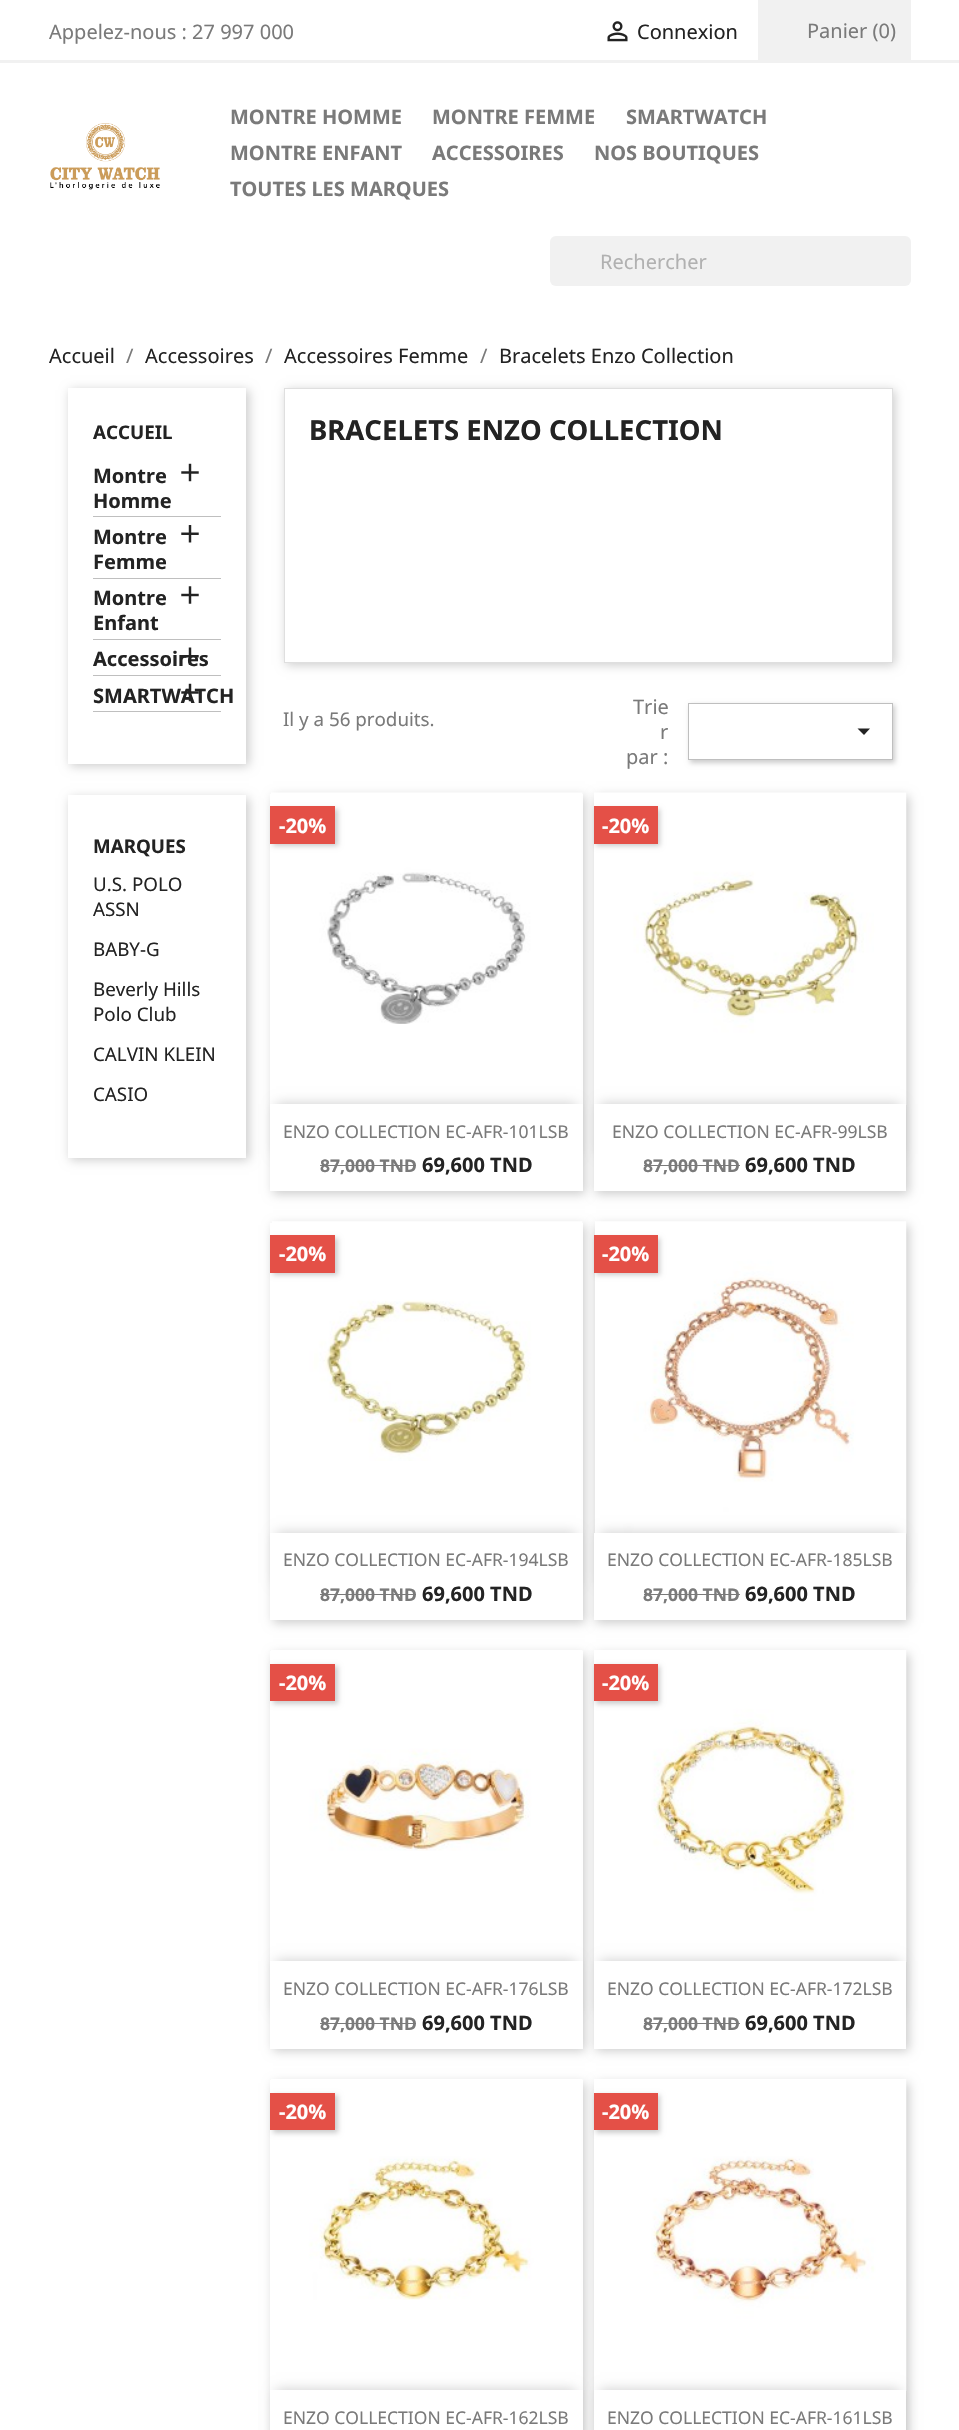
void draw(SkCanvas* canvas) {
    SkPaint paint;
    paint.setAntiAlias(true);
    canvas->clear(0xFFFFFFFF);
    paint.setColor(0xFFF1F1F1);
    canvas->drawRect(SkRect::MakeXYWH(0, 60, 959, 3), paint);
    SkFont font1(fontMgr->matchFamilyStyle("Noto Sans", SkFontStyle::Normal()), 20);
    font1.setSubpixel(true);
    paint.setColor(0xFF7A7A7A);
    canvas->drawString("Appelez-nous : 27 997 000", 49, 39, font1, paint);
    canvas->drawImageRect(SkImages::DeferredFromEncodedData(SkData::MakeFromFileName("img1.png")), SkRect::MakeXYWH(607, 21, 21, 21), SkSamplingOptions());
    paint.setColor(0xFF232323);
    canvas->drawString("Connexion", 637, 39, font1, paint);
    paint.setColor(0xFFF1F1F1);
    canvas->drawRect(SkRect::MakeXYWH(758, 0, 153, 60), paint);
    paint.setColor(0xFF7A7A7A);
    canvas->drawString("Panier (0)", 807, 38, font1, paint);
    canvas->drawImageRect(SkImages::DeferredFromEncodedData(SkData::MakeFromFileName("img2.png")), SkRect::MakeXYWH(50, 123, 110, 67), SkSamplingOptions());
    SkFont font2(fontMgr->matchFamilyStyle("Noto Sans", SkFontStyle::Bold()), 20);
    font2.setSubpixel(true);
    canvas->drawString("MONTRE HOMME", 230, 124, font2, paint);
    canvas->drawString("MONTRE FEMME", 432, 124, font2, paint);
    canvas->drawString("SMARTWATCH", 626, 124, font2, paint);
    canvas->drawString("MONTRE ENFANT", 230, 160, font2, paint);
    canvas->drawString("ACCESSOIRES", 432, 160, font2, paint);
    canvas->drawString("NOS BOUTIQUES", 594, 160, font2, paint);
    canvas->drawString("TOUTES LES MARQUES", 230, 196, font2, paint);
    paint.setColor(0xFFF1F1F1);
    canvas->drawRoundRect(SkRect::MakeXYWH(550, 236, 361, 50), 6, 6, paint);
    paint.setColor(0xFFB1B1B1);
    canvas->drawString("Rechercher", 600, 269, font1, paint);
    paint.setColor(0xFF232323);
    canvas->drawString("Accueil", 49, 363, font1, paint);
    paint.setColor(0xFF7A7A7A);
    canvas->drawString("/", 126, 363, font1, paint);
    paint.setColor(0xFF232323);
    canvas->drawString("Accessoires", 145, 363, font1, paint);
    paint.setColor(0xFF7A7A7A);
    canvas->drawString("/", 265, 363, font1, paint);
    paint.setColor(0xFF232323);
    canvas->drawString("Accessoires Femme", 284, 363, font1, paint);
    paint.setColor(0xFF7A7A7A);
    canvas->drawString("/", 480, 363, font1, paint);
    paint.setColor(0xFF232323);
    canvas->drawString("Bracelets Enzo Collection", 499, 363, font1, paint);
    paint.setColor(0x33000000);
    paint.setMaskFilter(SkMaskFilter::MakeBlur(kNormal_SkBlurStyle, 5));
    canvas->drawRect(SkRect::MakeXYWH(70, 390, 179, 376), paint);
    paint.setMaskFilter(nullptr);
    paint.setColor(0xFFFFFFFF);
    canvas->drawRect(SkRect::MakeXYWH(68, 388, 178, 376), paint);
    SkFont font3(fontMgr->matchFamilyStyle("Noto Sans", SkFontStyle::Bold()), 18.75f);
    font3.setSubpixel(true);
    paint.setColor(0xFF232323);
    canvas->drawString("ACCUEIL", 93, 439, font3, paint);
    paint.setColor(0xFFBFBFBF);
    canvas->drawRect(SkRect::MakeXYWH(93, 516, 128, 1), paint);
    paint.setColor(0xFF232323);
    canvas->drawString("Montre", 93, 483, font2, paint);
    canvas->drawString("Homme", 93, 508, font2, paint);
    canvas->drawImageRect(SkImages::DeferredFromEncodedData(SkData::MakeFromFileName("img3.png")), SkRect::MakeXYWH(181, 463, 18, 19), SkSamplingOptions());
    paint.setColor(0xFFBFBFBF);
    canvas->drawRect(SkRect::MakeXYWH(93, 578, 128, 1), paint);
    paint.setColor(0xFF232323);
    canvas->drawString("Montre", 93, 544, font2, paint);
    canvas->drawString("Femme", 93, 569, font2, paint);
    canvas->drawImageRect(SkImages::DeferredFromEncodedData(SkData::MakeFromFileName("img4.png")), SkRect::MakeXYWH(181, 525, 18, 18), SkSamplingOptions());
    paint.setColor(0xFFBFBFBF);
    canvas->drawRect(SkRect::MakeXYWH(93, 639, 128, 1), paint);
    paint.setColor(0xFF232323);
    canvas->drawString("Montre", 93, 605, font2, paint);
    canvas->drawString("Enfant", 93, 630, font2, paint);
    canvas->drawImageRect(SkImages::DeferredFromEncodedData(SkData::MakeFromFileName("img5.png")), SkRect::MakeXYWH(181, 586, 18, 18), SkSamplingOptions());
    canvas->drawString("Accessoires", 93, 666, font2, paint);
    canvas->drawImageRect(SkImages::DeferredFromEncodedData(SkData::MakeFromFileName("img6.png")), SkRect::MakeXYWH(181, 647, 18, 18), SkSamplingOptions());
    paint.setColor(0xFFBFBFBF);
    canvas->drawRect(SkRect::MakeXYWH(93, 675, 128, 1), paint);
    paint.setColor(0xFF232323);
    canvas->drawString("SMARTWATCH", 93, 703, font2, paint);
    canvas->drawImageRect(SkImages::DeferredFromEncodedData(SkData::MakeFromFileName("img7.png")), SkRect::MakeXYWH(181, 683, 18, 19), SkSamplingOptions());
    paint.setColor(0xFFBFBFBF);
    canvas->drawRect(SkRect::MakeXYWH(93, 711, 128, 1), paint);
    paint.setColor(0x33000000);
    paint.setMaskFilter(SkMaskFilter::MakeBlur(kNormal_SkBlurStyle, 5));
    canvas->drawRect(SkRect::MakeXYWH(70, 798, 179, 362), paint);
    paint.setMaskFilter(nullptr);
    paint.setColor(0xFFFFFFFF);
    canvas->drawRect(SkRect::MakeXYWH(68, 795, 178, 363), paint);
    paint.setColor(0xFF232323);
    canvas->drawString("MARQUES", 93, 853, font3, paint);
    SkFont font4(fontMgr->matchFamilyStyle("Noto Sans", SkFontStyle::Normal()), 18.75f);
    font4.setSubpixel(true);
    canvas->drawString("U.S. POLO", 93, 891, font4, paint);
    canvas->drawString("ASSN", 93, 916, font4, paint);
    canvas->drawString("BABY-G", 93, 956, font4, paint);
    canvas->drawString("Beverly Hills", 93, 996, font4, paint);
    canvas->drawString("Polo Club", 93, 1021, font4, paint);
    canvas->drawString("CALVIN KLEIN", 93, 1061, font4, paint);
    canvas->drawString("CASIO", 93, 1101, font4, paint);
    paint.setColor(0x33000000);
    paint.setMaskFilter(SkMaskFilter::MakeBlur(kNormal_SkBlurStyle, 5));
    canvas->drawRect(SkRect::MakeXYWH(286, 390, 609, 275), paint);
    paint.setMaskFilter(nullptr);
    paint.setColor(0xFFFFFFFF);
    canvas->drawRect(SkRect::MakeXYWH(284.5f, 388.5f, 608, 274), paint);
    paint.setStyle(SkPaint::kStroke_Style);
    paint.setStrokeWidth(1);
    paint.setColor(0xFFDFDFDF);
    canvas->drawRect(SkRect::MakeXYWH(284.5f, 388.5f, 608, 274), paint);
    SkFont font5(fontMgr->matchFamilyStyle("Noto Sans", SkFontStyle::Bold()), 27.5f);
    font5.setSubpixel(true);
    paint.setStyle(SkPaint::kFill_Style);
    paint.setColor(0xFF232323);
    canvas->drawString("BRACELETS ENZO COLLECTION", 309, 440, font5, paint);
    paint.setColor(0xFF7A7A7A);
    canvas->drawString("Il y a 56 produits.", 283, 726, font4, paint);
    canvas->drawString("Trie", 633, 714, font1, paint);
    canvas->drawString("r", 660, 739, font1, paint);
    canvas->drawString("par :", 626, 764, font1, paint);
    paint.setColor(0x33000000);
    paint.setMaskFilter(SkMaskFilter::MakeBlur(kNormal_SkBlurStyle, 2.5f));
    canvas->drawRect(SkRect::MakeXYWH(690, 705, 205, 58), paint);
    paint.setMaskFilter(nullptr);
    paint.setColor(0xFFFFFFFF);
    canvas->drawRect(SkRect::MakeXYWH(688.5f, 703.5f, 204, 56), paint);
    paint.setStyle(SkPaint::kStroke_Style);
    paint.setColor(0xFFBFBFBF);
    canvas->drawRect(SkRect::MakeXYWH(688.5f, 703.5f, 204, 56), paint);
    paint.setStyle(SkPaint::kFill_Style);
    paint.setColor(0xFF232323);
    canvas->drawPath(SkPathBuilder().moveTo(857.5f, 728.5f).lineTo(870, 728.5f).lineTo(864, 735).close().detach(), paint);
    paint.setColor(0x33000000);
    paint.setMaskFilter(SkMaskFilter::MakeBlur(kNormal_SkBlurStyle, 5));
    canvas->drawRect(SkRect::MakeXYWH(273, 796, 312, 398), paint);
    paint.setMaskFilter(nullptr);
    paint.setColor(0xFFFFFFFF);
    canvas->drawRect(SkRect::MakeXYWH(270, 794, 313, 310), paint);
    canvas->drawImageRect(SkImages::DeferredFromEncodedData(SkData::MakeFromFileName("img8.png")), SkRect::MakeXYWH(271, 792, 312, 232), SkSamplingOptions());
    paint.setColor(0x33000000);
    paint.setMaskFilter(SkMaskFilter::MakeBlur(kNormal_SkBlurStyle, 2.5f));
    canvas->drawRect(SkRect::MakeXYWH(273, 809, 65, 37), paint);
    paint.setMaskFilter(nullptr);
    paint.setColor(0xFFE45047);
    canvas->drawRect(SkRect::MakeXYWH(270, 806, 65, 38), paint);
    paint.setColor(0xFFFFFFFF);
    canvas->drawString("-20%", 279, 833, font2, paint);
    paint.setColor(0x33000000);
    paint.setMaskFilter(SkMaskFilter::MakeBlur(kNormal_SkBlurStyle, 5));
    canvas->drawRect(SkRect::MakeXYWH(596, 796, 313, 398), paint);
    paint.setMaskFilter(nullptr);
    canvas->drawImageRect(SkImages::DeferredFromEncodedData(SkData::MakeFromFileName("img9.png")), SkRect::MakeXYWH(594, 792, 313, 313), SkSamplingOptions());
    paint.setMaskFilter(SkMaskFilter::MakeBlur(kNormal_SkBlurStyle, 6));
    canvas->drawRect(SkRect::MakeXYWH(276, 1104, 300, 50), paint);
    paint.setMaskFilter(nullptr);
    paint.setMaskFilter(SkMaskFilter::MakeBlur(kNormal_SkBlurStyle, 6));
    canvas->drawRect(SkRect::MakeXYWH(600, 1104, 300, 50), paint);
    paint.setMaskFilter(nullptr);
    paint.setColor(0xFFFFFFFF);
    canvas->drawRect(SkRect::MakeXYWH(270, 1104, 313, 87), paint);
    SkFont font6(fontMgr->matchFamilyStyle("Noto Sans", SkFontStyle::Normal()), 17.5f);
    font6.setSubpixel(true);
    paint.setColor(0xFF7A7A7A);
    canvas->drawString("ENZO COLLECTION EC-AFR-101LSB", 283, 1138, font6, paint);
    SkFont font7(fontMgr->matchFamilyStyle("Noto Sans", SkFontStyle::Bold()), 17.5f);
    font7.setSubpixel(true);
    canvas->drawString("87,000 TND", 320, 1172, font7, paint);
    canvas->drawRect(SkRect::MakeXYWH(320, 1165, 96, 1), paint);
    paint.setColor(0xFF232323);
    canvas->drawString("69,600 TND", 422, 1172, font2, paint);
    paint.setColor(0x33000000);
    paint.setMaskFilter(SkMaskFilter::MakeBlur(kNormal_SkBlurStyle, 2.5f));
    canvas->drawRect(SkRect::MakeXYWH(596, 809, 64, 37), paint);
    paint.setMaskFilter(nullptr);
    paint.setColor(0xFFE45047);
    canvas->drawRect(SkRect::MakeXYWH(594, 806, 64, 38), paint);
    paint.setColor(0xFFFFFFFF);
    canvas->drawString("-20%", 602, 833, font2, paint);
    canvas->drawRect(SkRect::MakeXYWH(594, 1104, 312, 87), paint);
    paint.setColor(0xFF7A7A7A);
    canvas->drawString("ENZO COLLECTION EC-AFR-99LSB", 612, 1138, font6, paint);
    canvas->drawString("87,000 TND", 643, 1172, font7, paint);
    canvas->drawRect(SkRect::MakeXYWH(644, 1165, 96, 1), paint);
    paint.setColor(0xFF232323);
    canvas->drawString("69,600 TND", 745, 1172, font2, paint);
    paint.setColor(0x33000000);
    paint.setMaskFilter(SkMaskFilter::MakeBlur(kNormal_SkBlurStyle, 5));
    canvas->drawRect(SkRect::MakeXYWH(273, 1225, 312, 398), paint);
    paint.setMaskFilter(nullptr);
    paint.setColor(0xFFFFFFFF);
    canvas->drawRect(SkRect::MakeXYWH(270, 1223, 313, 310), paint);
    canvas->drawImageRect(SkImages::DeferredFromEncodedData(SkData::MakeFromFileName("img10.png")), SkRect::MakeXYWH(272, 1221, 311, 240), SkSamplingOptions());
    paint.setColor(0x33000000);
    paint.setMaskFilter(SkMaskFilter::MakeBlur(kNormal_SkBlurStyle, 2.5f));
    canvas->drawRect(SkRect::MakeXYWH(273, 1238, 65, 37), paint);
    paint.setMaskFilter(nullptr);
    paint.setColor(0xFFE45047);
    canvas->drawRect(SkRect::MakeXYWH(270, 1235, 65, 38), paint);
    paint.setColor(0xFFFFFFFF);
    canvas->drawString("-20%", 279, 1261, font2, paint);
    paint.setColor(0x33000000);
    paint.setMaskFilter(SkMaskFilter::MakeBlur(kNormal_SkBlurStyle, 6));
    canvas->drawRect(SkRect::MakeXYWH(276, 1533, 300, 50), paint);
    paint.setMaskFilter(nullptr);
    paint.setMaskFilter(SkMaskFilter::MakeBlur(kNormal_SkBlurStyle, 5));
    canvas->drawRect(SkRect::MakeXYWH(596, 1225, 313, 398), paint);
    paint.setMaskFilter(nullptr);
    canvas->drawImageRect(SkImages::DeferredFromEncodedData(SkData::MakeFromFileName("img11.png")), SkRect::MakeXYWH(595, 1221, 312, 313), SkSamplingOptions());
    paint.setMaskFilter(SkMaskFilter::MakeBlur(kNormal_SkBlurStyle, 6));
    canvas->drawRect(SkRect::MakeXYWH(600, 1533, 300, 50), paint);
    paint.setMaskFilter(nullptr);
    paint.setColor(0xFFFFFFFF);
    canvas->drawRect(SkRect::MakeXYWH(270, 1533, 313, 87), paint);
    paint.setColor(0xFF7A7A7A);
    canvas->drawString("ENZO COLLECTION EC-AFR-194LSB", 283, 1566, font6, paint);
    canvas->drawString("87,000 TND", 320, 1601, font7, paint);
    canvas->drawRect(SkRect::MakeXYWH(320, 1594, 96, 1), paint);
    paint.setColor(0xFF232323);
    canvas->drawString("69,600 TND", 422, 1601, font2, paint);
    paint.setColor(0x33000000);
    paint.setMaskFilter(SkMaskFilter::MakeBlur(kNormal_SkBlurStyle, 2.5f));
    canvas->drawRect(SkRect::MakeXYWH(596, 1238, 64, 37), paint);
    paint.setMaskFilter(nullptr);
    paint.setColor(0xFFE45047);
    canvas->drawRect(SkRect::MakeXYWH(594, 1235, 64, 38), paint);
    paint.setColor(0xFFFFFFFF);
    canvas->drawString("-20%", 602, 1261, font2, paint);
    canvas->drawRect(SkRect::MakeXYWH(594, 1533, 312, 87), paint);
    paint.setColor(0xFF7A7A7A);
    canvas->drawString("ENZO COLLECTION EC-AFR-185LSB", 607, 1566, font6, paint);
    canvas->drawString("87,000 TND", 643, 1601, font7, paint);
    canvas->drawRect(SkRect::MakeXYWH(644, 1594, 96, 1), paint);
    paint.setColor(0xFF232323);
    canvas->drawString("69,600 TND", 745, 1601, font2, paint);
    paint.setColor(0x33000000);
    paint.setMaskFilter(SkMaskFilter::MakeBlur(kNormal_SkBlurStyle, 5));
    canvas->drawRect(SkRect::MakeXYWH(273, 1654, 312, 397), paint);
    paint.setMaskFilter(nullptr);
    paint.setColor(0xFFFFFFFF);
    canvas->drawRect(SkRect::MakeXYWH(270, 1651, 313, 310), paint);
    canvas->drawImageRect(SkImages::DeferredFromEncodedData(SkData::MakeFromFileName("img12.png")), SkRect::MakeXYWH(271, 1650, 312, 201), SkSamplingOptions());
    paint.setColor(0x33000000);
    paint.setMaskFilter(SkMaskFilter::MakeBlur(kNormal_SkBlurStyle, 2.5f));
    canvas->drawRect(SkRect::MakeXYWH(273, 1666, 65, 38), paint);
    paint.setMaskFilter(nullptr);
    paint.setColor(0xFFE45047);
    canvas->drawRect(SkRect::MakeXYWH(270, 1664, 65, 37), paint);
    paint.setColor(0xFFFFFFFF);
    canvas->drawString("-20%", 279, 1690, font2, paint);
    paint.setColor(0x33000000);
    paint.setMaskFilter(SkMaskFilter::MakeBlur(kNormal_SkBlurStyle, 5));
    canvas->drawRect(SkRect::MakeXYWH(596, 1654, 313, 397), paint);
    paint.setMaskFilter(nullptr);
    canvas->drawImageRect(SkImages::DeferredFromEncodedData(SkData::MakeFromFileName("img13.png")), SkRect::MakeXYWH(594, 1650, 313, 312), SkSamplingOptions());
    paint.setMaskFilter(SkMaskFilter::MakeBlur(kNormal_SkBlurStyle, 6));
    canvas->drawRect(SkRect::MakeXYWH(276, 1961, 300, 50), paint);
    paint.setMaskFilter(nullptr);
    paint.setMaskFilter(SkMaskFilter::MakeBlur(kNormal_SkBlurStyle, 6));
    canvas->drawRect(SkRect::MakeXYWH(600, 1961, 300, 50), paint);
    paint.setMaskFilter(nullptr);
    paint.setColor(0xFFFFFFFF);
    canvas->drawRect(SkRect::MakeXYWH(270, 1961, 313, 88), paint);
    paint.setColor(0xFF7A7A7A);
    canvas->drawString("ENZO COLLECTION EC-AFR-176LSB", 283, 1995, font6, paint);
    canvas->drawString("87,000 TND", 320, 2030, font7, paint);
    canvas->drawRect(SkRect::MakeXYWH(320, 2023, 96, 1), paint);
    paint.setColor(0xFF232323);
    canvas->drawString("69,600 TND", 422, 2030, font2, paint);
    paint.setColor(0x33000000);
    paint.setMaskFilter(SkMaskFilter::MakeBlur(kNormal_SkBlurStyle, 2.5f));
    canvas->drawRect(SkRect::MakeXYWH(596, 1666, 64, 38), paint);
    paint.setMaskFilter(nullptr);
    paint.setColor(0xFFE45047);
    canvas->drawRect(SkRect::MakeXYWH(594, 1664, 64, 37), paint);
    paint.setColor(0xFFFFFFFF);
    canvas->drawString("-20%", 602, 1690, font2, paint);
    canvas->drawRect(SkRect::MakeXYWH(594, 1961, 312, 88), paint);
    paint.setColor(0xFF7A7A7A);
    canvas->drawString("ENZO COLLECTION EC-AFR-172LSB", 607, 1995, font6, paint);
    canvas->drawString("87,000 TND", 643, 2030, font7, paint);
    canvas->drawRect(SkRect::MakeXYWH(644, 2023, 96, 1), paint);
    paint.setColor(0xFF232323);
    canvas->drawString("69,600 TND", 745, 2030, font2, paint);
    paint.setColor(0x33000000);
    paint.setMaskFilter(SkMaskFilter::MakeBlur(kNormal_SkBlurStyle, 5));
    canvas->drawRect(SkRect::MakeXYWH(273, 2083, 312, 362), paint);
    paint.setMaskFilter(nullptr);
    paint.setColor(0xFFFFFFFF);
    canvas->drawRect(SkRect::MakeXYWH(270, 2080, 313, 310), paint);
    canvas->drawImageRect(SkImages::DeferredFromEncodedData(SkData::MakeFromFileName("img14.png")), SkRect::MakeXYWH(271, 2079, 312, 221), SkSamplingOptions());
    paint.setColor(0x33000000);
    paint.setMaskFilter(SkMaskFilter::MakeBlur(kNormal_SkBlurStyle, 2.5f));
    canvas->drawRect(SkRect::MakeXYWH(273, 2095, 65, 38), paint);
    paint.setMaskFilter(nullptr);
    paint.setColor(0xFFE45047);
    canvas->drawRect(SkRect::MakeXYWH(270, 2093, 65, 37), paint);
    paint.setColor(0xFFFFFFFF);
    canvas->drawString("-20%", 279, 2119, font2, paint);
    paint.setColor(0x33000000);
    paint.setMaskFilter(SkMaskFilter::MakeBlur(kNormal_SkBlurStyle, 5));
    canvas->drawRect(SkRect::MakeXYWH(596, 2083, 313, 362), paint);
    paint.setMaskFilter(nullptr);
    canvas->drawImageRect(SkImages::DeferredFromEncodedData(SkData::MakeFromFileName("img15.png")), SkRect::MakeXYWH(594, 2079, 313, 312), SkSamplingOptions());
    paint.setMaskFilter(SkMaskFilter::MakeBlur(kNormal_SkBlurStyle, 6));
    canvas->drawRect(SkRect::MakeXYWH(276, 2390, 300, 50), paint);
    paint.setMaskFilter(nullptr);
    paint.setMaskFilter(SkMaskFilter::MakeBlur(kNormal_SkBlurStyle, 6));
    canvas->drawRect(SkRect::MakeXYWH(600, 2390, 300, 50), paint);
    paint.setMaskFilter(nullptr);
    paint.setColor(0xFFFFFFFF);
    canvas->drawRect(SkRect::MakeXYWH(270, 2390, 313, 40), paint);
    paint.setColor(0xFF7A7A7A);
    canvas->drawString("ENZO COLLECTION EC-AFR-162LSB", 283, 2424, font6, paint);
    paint.setColor(0x33000000);
    paint.setMaskFilter(SkMaskFilter::MakeBlur(kNormal_SkBlurStyle, 2.5f));
    canvas->drawRect(SkRect::MakeXYWH(596, 2095, 64, 38), paint);
    paint.setMaskFilter(nullptr);
    paint.setColor(0xFFE45047);
    canvas->drawRect(SkRect::MakeXYWH(594, 2093, 64, 37), paint);
    paint.setColor(0xFFFFFFFF);
    canvas->drawString("-20%", 602, 2119, font2, paint);
    canvas->drawRect(SkRect::MakeXYWH(594, 2390, 312, 40), paint);
    paint.setColor(0xFF7A7A7A);
    canvas->drawString("ENZO COLLECTION EC-AFR-161LSB", 607, 2424, font6, paint);
}
